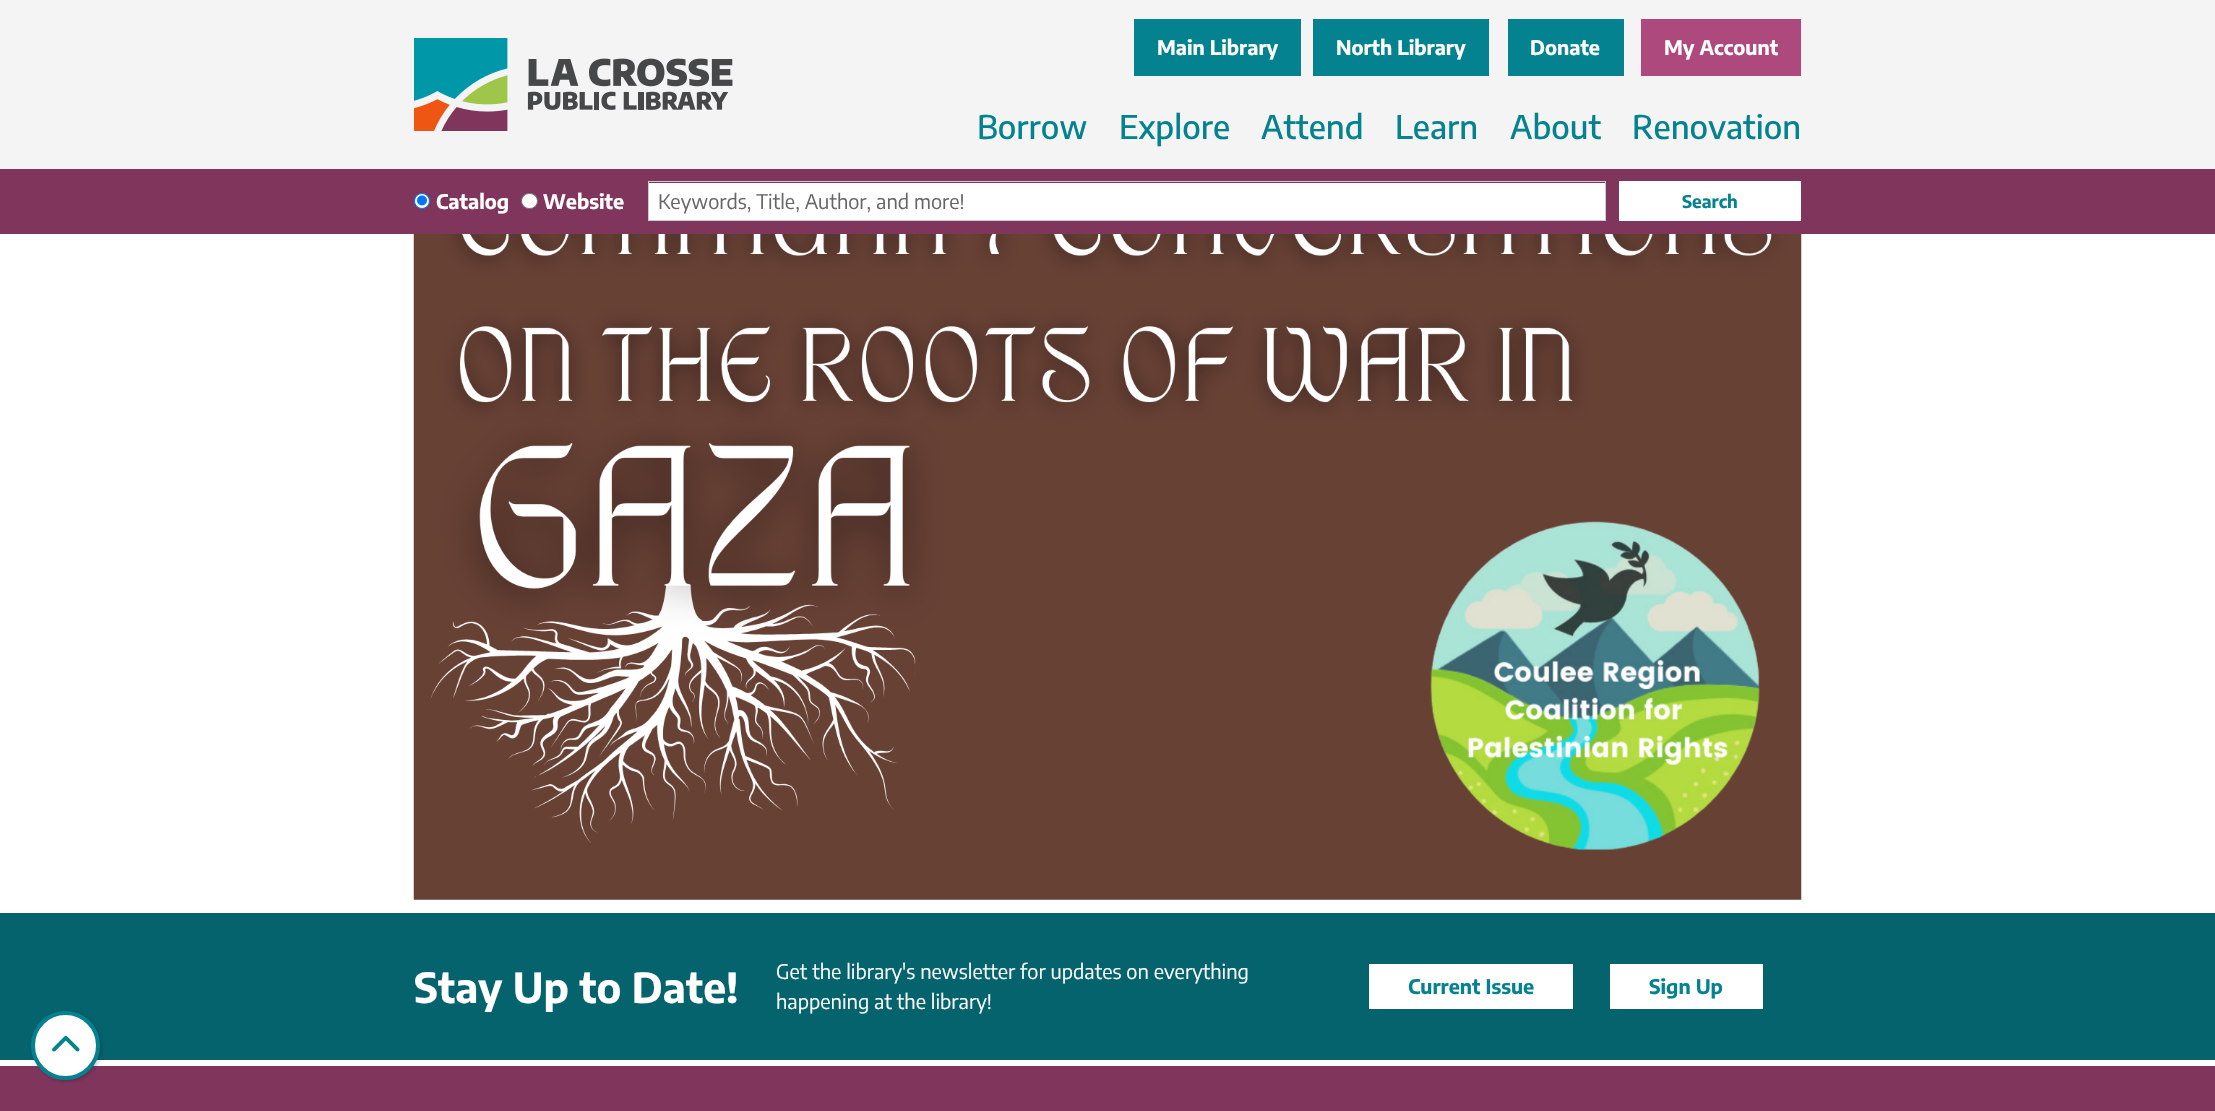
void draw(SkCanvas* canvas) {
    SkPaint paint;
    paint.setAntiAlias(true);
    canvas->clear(0xFFFFFFFF);
    paint.setColor(0xFFF4F4F4);
    canvas->drawRect(SkRect::MakeXYWH(0, 0, 2215, 169), paint);
    canvas->drawImageRect(SkImages::DeferredFromEncodedData(SkData::MakeFromFileName("img1.png")), SkRect::MakeXYWH(414, 38, 319, 93), SkSamplingOptions());
    paint.setColor(0xFF05828F);
    canvas->drawRect(SkRect::MakeXYWH(1134, 19, 167, 57), paint);
    SkFont font1(fontMgr->matchFamilyStyle("Encode Sans Condensed", SkFontStyle::Bold()), 20);
    font1.setSubpixel(true);
    paint.setColor(0xFFFFFFFF);
    canvas->drawString("Main Library", 1157, 55, font1, paint);
    paint.setColor(0xFF05828F);
    canvas->drawRect(SkRect::MakeXYWH(1313, 19, 176, 57), paint);
    paint.setColor(0xFFFFFFFF);
    canvas->drawString("North Library", 1336, 55, font1, paint);
    paint.setColor(0xFF05828F);
    canvas->drawRect(SkRect::MakeXYWH(1508, 19, 116, 57), paint);
    paint.setColor(0xFFFFFFFF);
    canvas->drawString("Donate", 1530, 55, font1, paint);
    paint.setColor(0xFFAE497D);
    canvas->drawRect(SkRect::MakeXYWH(1641, 19, 160, 57), paint);
    paint.setColor(0xFFFFFFFF);
    canvas->drawString("My Account", 1664, 55, font1, paint);
    SkFont font2(fontMgr->matchFamilyStyle("Encode Sans Condensed", SkFontStyle(500, SkFontStyle::kNormal_Width, SkFontStyle::kUpright_Slant)), 32.5f);
    font2.setSubpixel(true);
    paint.setColor(0xFF05828F);
    canvas->drawString("Borrow", 977, 139, font2, paint);
    canvas->drawString("Explore", 1119, 139, font2, paint);
    canvas->drawString("Attend", 1261, 139, font2, paint);
    canvas->drawString("Learn", 1395, 139, font2, paint);
    canvas->drawString("About", 1510, 139, font2, paint);
    canvas->drawString("Renovation", 1632, 139, font2, paint);
    paint.setColor(0xFF80355C);
    canvas->drawRect(SkRect::MakeXYWH(0, 169, 2215, 65), paint);
    paint.setColor(0xFFFFFFFF);
    canvas->drawCircle(422, 201, 7.5f, paint);
    paint.setStyle(SkPaint::kStroke_Style);
    paint.setStrokeWidth(1);
    paint.setColor(0xFF0075FF);
    canvas->drawCircle(422, 201, 7.5f, paint);
    paint.setStyle(SkPaint::kFill_Style);
    canvas->drawCircle(422, 200.5f, 5, paint);
    paint.setColor(0xFFFFFFFF);
    canvas->drawString("Catalog", 436, 209, font1, paint);
    canvas->drawRoundRect(SkRect::MakeXYWH(521.5f, 193.5f, 16, 15), 7.5f, 7.5f, paint);
    paint.setStyle(SkPaint::kStroke_Style);
    paint.setColor(0xFF767676);
    canvas->drawRoundRect(SkRect::MakeXYWH(521.5f, 193.5f, 16, 15), 7.5f, 7.5f, paint);
    paint.setStyle(SkPaint::kFill_Style);
    paint.setColor(0xFFFFFFFF);
    canvas->drawString("Website", 543, 209, font1, paint);
    canvas->drawRect(SkRect::MakeXYWH(649, 183, 956, 37), paint);
    paint.setStyle(SkPaint::kStroke_Style);
    paint.setColor(0xFFCCCCCC);
    canvas->drawRect(SkRect::MakeXYWH(648.5f, 181.5f, 957, 39), paint);
    SkFont font3(fontMgr->matchFamilyStyle("Encode Sans Condensed", SkFontStyle::Normal()), 20);
    font3.setSubpixel(true);
    paint.setStyle(SkPaint::kFill_Style);
    paint.setColor(0xFF666666);
    canvas->drawString("Keywords, Title, Author, and more!", 658, 209, font3, paint);
    paint.setColor(0xFFFFFFFF);
    canvas->drawRect(SkRect::MakeXYWH(1619, 181, 182, 40), paint);
    SkFont font4(fontMgr->matchFamilyStyle("Encode Sans Condensed", SkFontStyle::Bold()), 17.5f);
    font4.setSubpixel(true);
    paint.setColor(0xFF05828F);
    canvas->drawString("Search", 1682, 208, font4, paint);
    canvas->drawImageRect(SkImages::DeferredFromEncodedData(SkData::MakeFromFileName("img2.png")), SkRect::MakeXYWH(413, 234, 1389, 666), SkSamplingOptions());
    paint.setColor(0xFF04636D);
    canvas->drawRect(SkRect::MakeXYWH(0, 913, 2215, 147), paint);
    SkFont font5(fontMgr->matchFamilyStyle("Encode Sans Condensed", SkFontStyle::Bold()), 41.25f);
    font5.setSubpixel(true);
    paint.setColor(0xFFFFFFFF);
    canvas->drawString("Stay Up to Date!", 414, 1003, font5, paint);
    canvas->drawString("Get the library's newsletter for updates on everything", 776, 979, font3, paint);
    canvas->drawString("happening at the library!", 776, 1009, font3, paint);
    canvas->drawRect(SkRect::MakeXYWH(1369, 964, 204, 45), paint);
    paint.setColor(0xFF05828F);
    canvas->drawString("Current Issue", 1408, 994, font1, paint);
    paint.setColor(0xFFFFFFFF);
    canvas->drawRect(SkRect::MakeXYWH(1610, 964, 153, 45), paint);
    paint.setColor(0xFF05828F);
    canvas->drawString("Sign Up", 1649, 994, font1, paint);
    paint.setColor(0xFF80355C);
    canvas->drawRect(SkRect::MakeXYWH(0, 1066, 2215, 45), paint);
    paint.setColor(0x40000000);
    paint.setMaskFilter(SkMaskFilter::MakeBlur(kNormal_SkBlurStyle, 2));
    canvas->drawRoundRect(SkRect::MakeXYWH(33, 1013, 68, 68), 34, 34, paint);
    paint.setMaskFilter(nullptr);
    paint.setColor(0xFFFFFFFF);
    canvas->drawCircle(65.5f, 1045.5f, 32.5f, paint);
    paint.setStyle(SkPaint::kStroke_Style);
    paint.setStrokeWidth(4);
    paint.setColor(0xFF05828F);
    canvas->drawCircle(65.5f, 1045.5f, 32.5f, paint);
    canvas->drawImageRect(SkImages::DeferredFromEncodedData(SkData::MakeFromFileName("img3.png")), SkRect::MakeXYWH(52, 1035, 28, 17), SkSamplingOptions());
}
